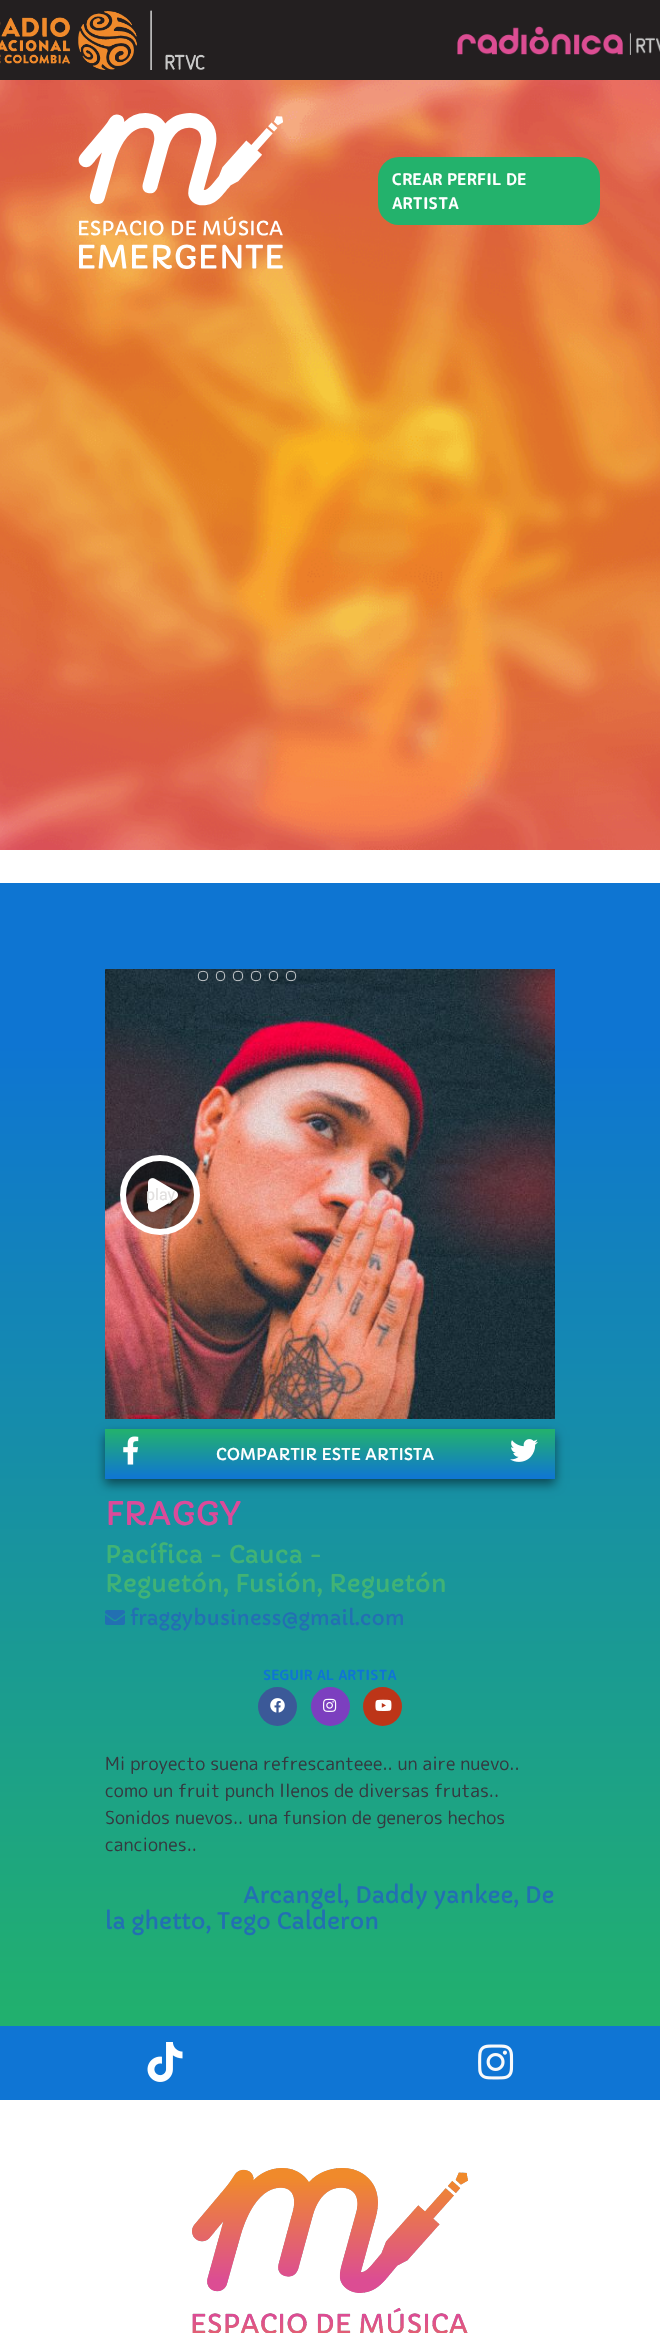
void draw(SkCanvas* canvas) {
    SkPaint paint;
    paint.setAntiAlias(true);
    canvas->clear(0xFFFFFFFF);
    paint.setColor(0xFF231F20);
    canvas->drawRect(SkRect::MakeXYWH(0, 0, 660, 80), paint);
    canvas->drawImageRect(SkImages::DeferredFromEncodedData(SkData::MakeFromFileName("img1.png")), SkRect::MakeXYWH(0, 10, 205, 60), SkSamplingOptions());
    canvas->drawImageRect(SkImages::DeferredFromEncodedData(SkData::MakeFromFileName("img2.png")), SkRect::MakeXYWH(457, 26, 203, 29), SkSamplingOptions());
    canvas->drawImageRect(SkImages::DeferredFromEncodedData(SkData::MakeFromFileName("img3.png")), SkRect::MakeXYWH(0, 80, 660, 770), SkSamplingOptions());
    canvas->drawImageRect(SkImages::DeferredFromEncodedData(SkData::MakeFromFileName("img4.png")), SkRect::MakeXYWH(78, 113, 205, 156), SkSamplingOptions());
    paint.setColor(0xFF23B26C);
    canvas->drawRoundRect(SkRect::MakeXYWH(378, 157, 222, 68), 21, 21, paint);
    SkFont font1(fontMgr->matchFamilyStyle("Rounded Mplus 1c Bold", SkFontStyle::Bold()), 16);
    font1.setSubpixel(true);
    paint.setColor(0xFFFFFFFF);
    canvas->drawString("CREAR PERFIL DE", 392, 185, font1, paint);
    canvas->drawString("ARTISTA", 392, 209, font1, paint);
    {
        const SkColor colors[] = {0xFF0E75D2, 0xFF21B06E};
        const float stops[] = {0.14f, 0.99f};
        const SkPoint ends[] = {{330, 883}, {330, 2026}};
        paint.setShader(SkGradientShader::MakeLinear(ends, colors, stops, 2, SkTileMode::kClamp));
        paint.setAlpha(255);
    }
    canvas->drawRect(SkRect::MakeXYWH(0, 883, 660, 1143), paint);
    paint.setShader(nullptr);
    paint.setColor(0x80000000);
    paint.setMaskFilter(SkMaskFilter::MakeBlur(kNormal_SkBlurStyle, 5));
    canvas->drawRect(SkRect::MakeXYWH(105, 1434, 450, 50), paint);
    paint.setMaskFilter(nullptr);
    canvas->drawImageRect(SkImages::DeferredFromEncodedData(SkData::MakeFromFileName("img6.png")), SkRect::MakeXYWH(105, 969, 450, 450), SkSamplingOptions());
    paint.setStyle(SkPaint::kStroke_Style);
    paint.setStrokeWidth(0.8f);
    paint.setColor(0xFFEEEEEE);
    canvas->drawRoundRect(SkRect::MakeXYWH(198.4f, 971.4f, 9.2f, 9.2f), 3.6f, 3.6f, paint);
    canvas->drawRoundRect(SkRect::MakeXYWH(216.4f, 971.4f, 8.2f, 9.2f), 3.6f, 3.6f, paint);
    canvas->drawRoundRect(SkRect::MakeXYWH(233.4f, 971.4f, 9.2f, 9.2f), 3.6f, 3.6f, paint);
    canvas->drawRoundRect(SkRect::MakeXYWH(251.4f, 971.4f, 9.2f, 9.2f), 3.6f, 3.6f, paint);
    canvas->drawRoundRect(SkRect::MakeXYWH(269.4f, 971.4f, 8.2f, 9.2f), 3.6f, 3.6f, paint);
    canvas->drawRoundRect(SkRect::MakeXYWH(286.4f, 971.4f, 9.2f, 9.2f), 3.6f, 3.6f, paint);
    paint.setStyle(SkPaint::kFill_Style);
    paint.setColor(0x80000000);
    canvas->drawCircle(160, 1195, 37, paint);
    paint.setStyle(SkPaint::kStroke_Style);
    paint.setStrokeWidth(6);
    paint.setColor(0xFFFFFFFF);
    canvas->drawCircle(160, 1195, 37, paint);
    canvas->drawImageRect(SkImages::DeferredFromEncodedData(SkData::MakeFromFileName("img5.png")), SkRect::MakeXYWH(148, 1178, 30, 34), SkSamplingOptions());
    SkFont font2(fontMgr->matchFamilyStyle("Roboto", SkFontStyle::Normal()), 16);
    font2.setSubpixel(true);
    paint.setStyle(SkPaint::kFill_Style);
    paint.setColor(0xFFE2E0DF);
    canvas->drawString("play", 146, 1200, font2, paint);
    {
        const SkColor colors[] = {0xFF23B26C, 0xFF0F75D4};
        const float stops[] = {0, 1};
        const SkPoint ends[] = {{330, 1429}, {330, 1479}};
        paint.setShader(SkGradientShader::MakeLinear(ends, colors, stops, 2, SkTileMode::kClamp));
        paint.setAlpha(255);
    }
    canvas->drawRect(SkRect::MakeXYWH(105, 1429, 450, 50), paint);
    canvas->drawImageRect(SkImages::DeferredFromEncodedData(SkData::MakeFromFileName("img7.png")), SkRect::MakeXYWH(123, 1436, 16, 29), SkSamplingOptions());
    SkFont font3(fontMgr->matchFamilyStyle("Capriola", SkFontStyle::Normal()), 16);
    font3.setSubpixel(true);
    paint.setShader(nullptr);
    paint.setColor(0xFFFFFFFF);
    canvas->drawString("COMPARTIR ESTE ARTISTA", 216, 1460, font3, paint);
    canvas->drawImageRect(SkImages::DeferredFromEncodedData(SkData::MakeFromFileName("img8.png")), SkRect::MakeXYWH(510, 1439, 28, 23), SkSamplingOptions());
    SkFont font4(fontMgr->matchFamilyStyle("Capriola", SkFontStyle::Normal()), 32);
    font4.setSubpixel(true);
    paint.setColor(0xFFDA4B9A);
    canvas->drawString("FRAGGY", 105, 1525, font4, paint);
    SkFont font5(fontMgr->matchFamilyStyle("Capriola", SkFontStyle::Normal()), 24);
    font5.setSubpixel(true);
    paint.setColor(0xFF41B375);
    canvas->drawString("Pacífica - Cauca -", 105, 1563, font5, paint);
    canvas->drawString("Reguetón, Fusión, Reguetón", 105, 1592, font5, paint);
    canvas->drawImageRect(SkImages::DeferredFromEncodedData(SkData::MakeFromFileName("img9.png")), SkRect::MakeXYWH(105, 1610, 20, 15), SkSamplingOptions());
    SkFont font6(fontMgr->matchFamilyStyle("Capriola", SkFontStyle::Normal()), 20);
    font6.setSubpixel(true);
    paint.setColor(0xFF2270B2);
    canvas->drawString("fraggybusiness@gmail.com", 130, 1625, font6, paint);
    SkFont font7(fontMgr->matchFamilyStyle("Rounded Mplus 1c Bold", SkFontStyle::Bold()), 14);
    font7.setSubpixel(true);
    paint.setColor(0xFF0F75D4);
    canvas->drawString("SEGUIR AL ARTISTA", 263, 1680, font7, paint);
    paint.setColor(0xFF3B5998);
    canvas->drawCircle(277.5f, 1706.5f, 19.5f, paint);
    canvas->drawImageRect(SkImages::DeferredFromEncodedData(SkData::MakeFromFileName("img10.png")), SkRect::MakeXYWH(270, 1698, 15, 15), SkSamplingOptions());
    paint.setColor(0xFF7C3FBF);
    canvas->drawCircle(330.5f, 1706.5f, 19.5f, paint);
    canvas->drawImageRect(SkImages::DeferredFromEncodedData(SkData::MakeFromFileName("img11.png")), SkRect::MakeXYWH(323, 1698, 14, 14), SkSamplingOptions());
    paint.setColor(0xFFBD3518);
    canvas->drawCircle(382.5f, 1706.5f, 19.5f, paint);
    canvas->drawImageRect(SkImages::DeferredFromEncodedData(SkData::MakeFromFileName("img12.png")), SkRect::MakeXYWH(375, 1699, 17, 12), SkSamplingOptions());
    SkFont font8(fontMgr->matchFamilyStyle("Rounded Mplus 1c", SkFontStyle::Normal()), 18);
    font8.setSubpixel(true);
    paint.setColor(0xFF343A40);
    canvas->drawString("Mi proyecto suena refrescanteee.. un aire nuevo..", 105, 1770, font8, paint);
    canvas->drawString("como un fruit punch llenos de diversas frutas..", 105, 1797, font8, paint);
    canvas->drawString("Sonidos nuevos.. una funsion de generos hechos", 105, 1824, font8, paint);
    canvas->drawString("canciones..", 105, 1851, font8, paint);
    SkFont font9(fontMgr->matchFamilyStyle("Capriola", SkFontStyle::Normal()), 22.4f);
    font9.setSubpixel(true);
    paint.setColor(0xFF2270B2);
    canvas->drawString("Arcangel, Daddy yankee, De", 243, 1903, font9, paint);
    canvas->drawString("la ghetto, Tego Calderon", 105, 1929, font9, paint);
    paint.setColor(0xFF0F75D4);
    canvas->drawRect(SkRect::MakeXYWH(0, 2026, 660, 74), paint);
    canvas->drawImageRect(SkImages::DeferredFromEncodedData(SkData::MakeFromFileName("img13.png")), SkRect::MakeXYWH(147, 2042, 36, 40), SkSamplingOptions());
    canvas->drawImageRect(SkImages::DeferredFromEncodedData(SkData::MakeFromFileName("img14.png")), SkRect::MakeXYWH(478, 2044, 36, 36), SkSamplingOptions());
    canvas->drawImageRect(SkImages::DeferredFromEncodedData(SkData::MakeFromFileName("img15.png")), SkRect::MakeXYWH(192, 2168, 276, 165), SkSamplingOptions());
}
